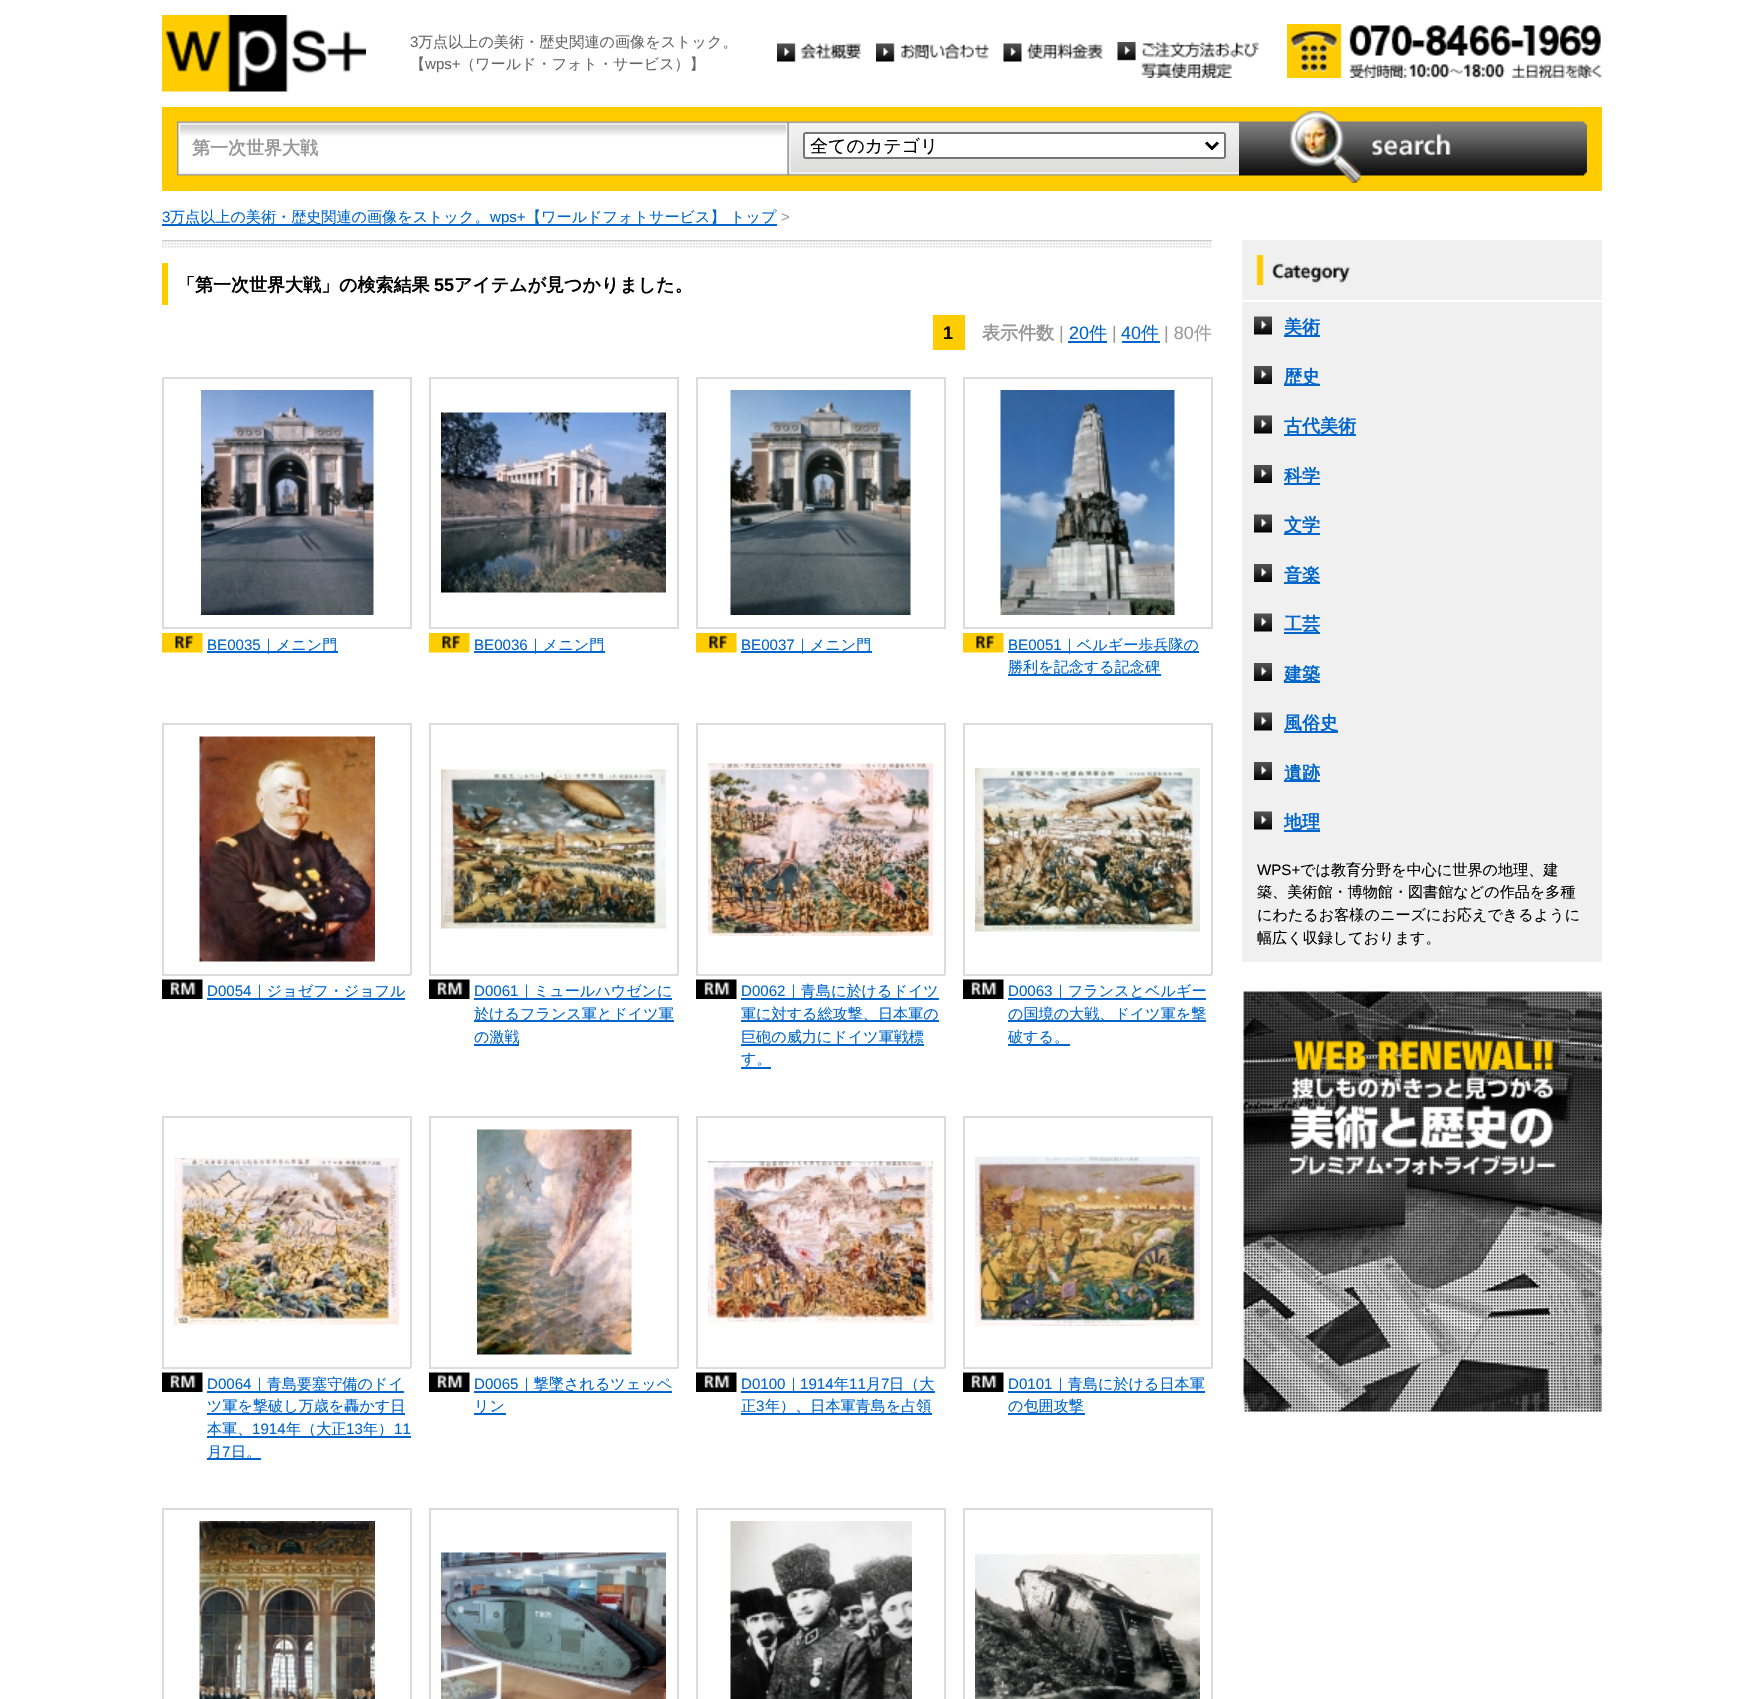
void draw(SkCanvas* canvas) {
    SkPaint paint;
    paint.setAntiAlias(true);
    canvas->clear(0xFFFFFFFF);
    canvas->drawImageRect(SkImages::DeferredFromEncodedData(SkData::MakeFromFileName("img1.png")), SkRect::MakeXYWH(162, 15, 204, 77), SkSamplingOptions());
    SkFont font1(fontMgr->matchFamilyStyle("Liberation Sans", SkFontStyle::Normal()), 15.1f);
    font1.setSubpixel(true);
    paint.setColor(0xFF666666);
    canvas->drawString("3", 410, 47, font1, paint);
    SkFont font2(fontMgr->matchFamilyStyle("WenQuanYi Zen Hei", SkFontStyle(500, SkFontStyle::kNormal_Width, SkFontStyle::kUpright_Slant)), 15.1f);
    font2.setSubpixel(true);
    canvas->drawString("万点以上の美術・歴史関連の画像をストック。", 418, 47, font2, paint);
    canvas->drawString("【", 410, 69, font2, paint);
    canvas->drawString("wps+", 425, 69, font1, paint);
    canvas->drawString("（ワールド・フォト・サービス）】", 460, 69, font2, paint);
    canvas->drawImageRect(SkImages::DeferredFromEncodedData(SkData::MakeFromFileName("img2.png")), SkRect::MakeXYWH(777, 43, 84, 19), SkSamplingOptions());
    canvas->drawImageRect(SkImages::DeferredFromEncodedData(SkData::MakeFromFileName("img3.png")), SkRect::MakeXYWH(876, 43, 113, 19), SkSamplingOptions());
    canvas->drawImageRect(SkImages::DeferredFromEncodedData(SkData::MakeFromFileName("img4.png")), SkRect::MakeXYWH(1003, 43, 100, 19), SkSamplingOptions());
    canvas->drawImageRect(SkImages::DeferredFromEncodedData(SkData::MakeFromFileName("img5.png")), SkRect::MakeXYWH(1117, 42, 142, 36), SkSamplingOptions());
    canvas->drawImageRect(SkImages::DeferredFromEncodedData(SkData::MakeFromFileName("img6.png")), SkRect::MakeXYWH(1287, 24, 315, 54), SkSamplingOptions());
    paint.setColor(0xFFFFCC00);
    canvas->drawRect(SkRect::MakeXYWH(162, 107, 1440, 84), paint);
    canvas->drawImageRect(SkImages::DeferredFromEncodedData(SkData::MakeFromFileName("img7.png")), SkRect::MakeXYWH(177, 121, 612, 55), SkSamplingOptions());
    SkFont font3(fontMgr->matchFamilyStyle("WenQuanYi Zen Hei", SkFontStyle::Bold()), 18);
    font3.setSubpixel(true);
    paint.setColor(0xFF999999);
    canvas->drawString("第一次世界大戦", 192, 154, font3, paint);
    canvas->drawImageRect(SkImages::DeferredFromEncodedData(SkData::MakeFromFileName("img8.png")), SkRect::MakeXYWH(787, 121, 452, 55), SkSamplingOptions());
    paint.setColor(0xFFFFFFFF);
    canvas->drawRoundRect(SkRect::MakeXYWH(804, 133, 421, 25), 2, 2, paint);
    paint.setStyle(SkPaint::kStroke_Style);
    paint.setStrokeWidth(2);
    paint.setColor(0xFF767676);
    canvas->drawRoundRect(SkRect::MakeXYWH(804, 133, 421, 25), 2, 2, paint);
    paint.setStrokeWidth(3);
    paint.setColor(0xFF000000);
    canvas->drawPath(SkPathBuilder().moveTo(1206, 142.5f).lineTo(1212, 148.5f).lineTo(1218, 142.5f).detach(), paint);
    SkFont font4(fontMgr->matchFamilyStyle("WenQuanYi Zen Hei", SkFontStyle(500, SkFontStyle::kNormal_Width, SkFontStyle::kUpright_Slant)), 18);
    font4.setSubpixel(true);
    paint.setStyle(SkPaint::kFill_Style);
    canvas->drawString("全てのカテゴリ", 810, 152, font4, paint);
    canvas->drawImageRect(SkImages::DeferredFromEncodedData(SkData::MakeFromFileName("img9.png")), SkRect::MakeXYWH(1239, 111, 348, 72), SkSamplingOptions());
    paint.setColor(0xFF0066CC);
    canvas->drawString("3", 162, 222, font1, paint);
    canvas->drawRect(SkRect::MakeXYWH(162, 224, 615, 2), paint);
    canvas->drawString("万点以上の美術・歴史関連の画像をストック。", 170, 222, font2, paint);
    canvas->drawString("wps+", 490, 222, font1, paint);
    canvas->drawString("【ワールドフォトサービス】 トップ", 526, 222, font2, paint);
    paint.setColor(0xFF999999);
    canvas->drawString(">", 781, 222, font1, paint);
    canvas->drawImageRect(SkImages::DeferredFromEncodedData(SkData::MakeFromFileName("img10.png")), SkRect::MakeXYWH(162, 240, 1050, 8), SkSamplingOptions());
    paint.setColor(0xFFFFCC00);
    canvas->drawRect(SkRect::MakeXYWH(162, 263, 6, 42), paint);
    paint.setColor(0xFF000000);
    canvas->drawString("「第一次世界大戦」の検索結果", 177, 291, font3, paint);
    SkFont font5(fontMgr->matchFamilyStyle("Liberation Sans", SkFontStyle::Bold()), 18);
    font5.setSubpixel(true);
    canvas->drawString("55", 434, 291, font5, paint);
    canvas->drawString("アイテムが見つかりました。", 454, 291, font3, paint);
    paint.setColor(0xFFFFCC00);
    canvas->drawRect(SkRect::MakeXYWH(933, 315, 32, 35), paint);
    paint.setColor(0xFF000000);
    canvas->drawString("1", 943, 339, font5, paint);
    paint.setColor(0xFF999999);
    canvas->drawString("表示件数", 982, 339, font3, paint);
    SkFont font6(fontMgr->matchFamilyStyle("Liberation Sans", SkFontStyle::Normal()), 18);
    font6.setSubpixel(true);
    canvas->drawString("|", 1059, 339, font6, paint);
    paint.setColor(0xFF0066CC);
    canvas->drawString("20", 1069, 339, font6, paint);
    canvas->drawRect(SkRect::MakeXYWH(1068, 341, 39, 2), paint);
    canvas->drawString("件", 1089, 339, font4, paint);
    paint.setColor(0xFF999999);
    canvas->drawString("|", 1112, 339, font6, paint);
    paint.setColor(0xFF0066CC);
    canvas->drawString("40", 1121, 339, font6, paint);
    canvas->drawRect(SkRect::MakeXYWH(1122, 341, 38, 2), paint);
    canvas->drawString("件", 1141, 339, font4, paint);
    paint.setColor(0xFF999999);
    canvas->drawString("| 80", 1164, 339, font6, paint);
    canvas->drawString("件", 1194, 339, font4, paint);
    paint.setColor(0xFFDCDCDC);
    canvas->drawRect(SkRect::MakeXYWH(162, 377, 249, 2), paint);
    canvas->drawRect(SkRect::MakeXYWH(410, 377, 2, 252), paint);
    canvas->drawRect(SkRect::MakeXYWH(162, 627, 249, 2), paint);
    canvas->drawRect(SkRect::MakeXYWH(162, 377, 2, 252), paint);
    canvas->drawImageRect(SkImages::DeferredFromEncodedData(SkData::MakeFromFileName("img11.png")), SkRect::MakeXYWH(201, 390, 173, 225), SkSamplingOptions());
    canvas->drawImageRect(SkImages::DeferredFromEncodedData(SkData::MakeFromFileName("img12.png")), SkRect::MakeXYWH(162, 633, 41, 20), SkSamplingOptions());
    paint.setColor(0xFF0066CC);
    canvas->drawString("BE0035", 207, 650, font1, paint);
    canvas->drawRect(SkRect::MakeXYWH(207, 651, 131, 2), paint);
    canvas->drawString("｜メニン門", 261, 650, font2, paint);
    paint.setColor(0xFFDCDCDC);
    canvas->drawRect(SkRect::MakeXYWH(429, 377, 249, 2), paint);
    canvas->drawRect(SkRect::MakeXYWH(677, 377, 2, 252), paint);
    canvas->drawRect(SkRect::MakeXYWH(429, 627, 249, 2), paint);
    canvas->drawRect(SkRect::MakeXYWH(429, 377, 2, 252), paint);
    canvas->drawImageRect(SkImages::DeferredFromEncodedData(SkData::MakeFromFileName("img13.png")), SkRect::MakeXYWH(441, 412, 225, 181), SkSamplingOptions());
    canvas->drawImageRect(SkImages::DeferredFromEncodedData(SkData::MakeFromFileName("img14.png")), SkRect::MakeXYWH(429, 633, 41, 20), SkSamplingOptions());
    paint.setColor(0xFF0066CC);
    canvas->drawString("BE0036", 474, 650, font1, paint);
    canvas->drawRect(SkRect::MakeXYWH(474, 651, 131, 2), paint);
    canvas->drawString("｜メニン門", 528, 650, font2, paint);
    paint.setColor(0xFFDCDCDC);
    canvas->drawRect(SkRect::MakeXYWH(696, 377, 249, 2), paint);
    canvas->drawRect(SkRect::MakeXYWH(944, 377, 2, 252), paint);
    canvas->drawRect(SkRect::MakeXYWH(696, 627, 249, 2), paint);
    canvas->drawRect(SkRect::MakeXYWH(696, 377, 2, 252), paint);
    canvas->drawImageRect(SkImages::DeferredFromEncodedData(SkData::MakeFromFileName("img15.png")), SkRect::MakeXYWH(730, 390, 181, 225), SkSamplingOptions());
    canvas->drawImageRect(SkImages::DeferredFromEncodedData(SkData::MakeFromFileName("img12.png")), SkRect::MakeXYWH(696, 633, 41, 20), SkSamplingOptions());
    paint.setColor(0xFF0066CC);
    canvas->drawString("BE0037", 741, 650, font1, paint);
    canvas->drawRect(SkRect::MakeXYWH(741, 651, 131, 2), paint);
    canvas->drawString("｜メニン門", 795, 650, font2, paint);
    paint.setColor(0xFFDCDCDC);
    canvas->drawRect(SkRect::MakeXYWH(963, 377, 249, 2), paint);
    canvas->drawRect(SkRect::MakeXYWH(1211, 377, 2, 252), paint);
    canvas->drawRect(SkRect::MakeXYWH(963, 627, 249, 2), paint);
    canvas->drawRect(SkRect::MakeXYWH(963, 377, 2, 252), paint);
    canvas->drawImageRect(SkImages::DeferredFromEncodedData(SkData::MakeFromFileName("img16.png")), SkRect::MakeXYWH(1000, 390, 175, 225), SkSamplingOptions());
    canvas->drawImageRect(SkImages::DeferredFromEncodedData(SkData::MakeFromFileName("img12.png")), SkRect::MakeXYWH(963, 633, 41, 20), SkSamplingOptions());
    paint.setColor(0xFF0066CC);
    canvas->drawString("BE0051", 1008, 650, font1, paint);
    canvas->drawRect(SkRect::MakeXYWH(1008, 651, 191, 2), paint);
    canvas->drawString("｜ベルギー歩兵隊の", 1062, 650, font2, paint);
    canvas->drawRect(SkRect::MakeXYWH(1008, 674, 153, 2), paint);
    canvas->drawString("勝利を記念する記念碑", 1008, 672, font2, paint);
    paint.setColor(0xFFDCDCDC);
    canvas->drawRect(SkRect::MakeXYWH(162, 723, 249, 2), paint);
    canvas->drawRect(SkRect::MakeXYWH(410, 723, 2, 252), paint);
    canvas->drawRect(SkRect::MakeXYWH(162, 974, 249, 2), paint);
    canvas->drawRect(SkRect::MakeXYWH(162, 723, 2, 252), paint);
    canvas->drawImageRect(SkImages::DeferredFromEncodedData(SkData::MakeFromFileName("img17.png")), SkRect::MakeXYWH(199, 736, 176, 226), SkSamplingOptions());
    canvas->drawImageRect(SkImages::DeferredFromEncodedData(SkData::MakeFromFileName("img18.png")), SkRect::MakeXYWH(162, 979, 41, 20), SkSamplingOptions());
    paint.setColor(0xFF0066CC);
    canvas->drawString("D0054", 207, 996, font1, paint);
    canvas->drawRect(SkRect::MakeXYWH(207, 998, 198, 2), paint);
    canvas->drawString("｜ジョゼフ・ジョフル", 252, 996, font2, paint);
    paint.setColor(0xFFDCDCDC);
    canvas->drawRect(SkRect::MakeXYWH(429, 723, 249, 2), paint);
    canvas->drawRect(SkRect::MakeXYWH(677, 723, 2, 252), paint);
    canvas->drawRect(SkRect::MakeXYWH(429, 974, 249, 2), paint);
    canvas->drawRect(SkRect::MakeXYWH(429, 723, 2, 252), paint);
    canvas->drawImageRect(SkImages::DeferredFromEncodedData(SkData::MakeFromFileName("img19.png")), SkRect::MakeXYWH(441, 769, 225, 160), SkSamplingOptions());
    canvas->drawImageRect(SkImages::DeferredFromEncodedData(SkData::MakeFromFileName("img20.png")), SkRect::MakeXYWH(429, 979, 41, 20), SkSamplingOptions());
    paint.setColor(0xFF0066CC);
    canvas->drawString("D0061", 474, 996, font1, paint);
    canvas->drawRect(SkRect::MakeXYWH(474, 998, 198, 2), paint);
    canvas->drawString("｜ミュールハウゼンに", 519, 996, font2, paint);
    canvas->drawRect(SkRect::MakeXYWH(474, 1020, 200, 2), paint);
    canvas->drawString("於けるフランス軍とドイツ軍", 474, 1019, font2, paint);
    canvas->drawRect(SkRect::MakeXYWH(474, 1044, 45, 2), paint);
    canvas->drawString("の激戦", 474, 1042, font2, paint);
    paint.setColor(0xFFDCDCDC);
    canvas->drawRect(SkRect::MakeXYWH(696, 723, 249, 2), paint);
    canvas->drawRect(SkRect::MakeXYWH(944, 723, 2, 252), paint);
    canvas->drawRect(SkRect::MakeXYWH(696, 974, 249, 2), paint);
    canvas->drawRect(SkRect::MakeXYWH(696, 723, 2, 252), paint);
    canvas->drawImageRect(SkImages::DeferredFromEncodedData(SkData::MakeFromFileName("img21.png")), SkRect::MakeXYWH(708, 763, 225, 173), SkSamplingOptions());
    canvas->drawImageRect(SkImages::DeferredFromEncodedData(SkData::MakeFromFileName("img18.png")), SkRect::MakeXYWH(696, 979, 41, 20), SkSamplingOptions());
    paint.setColor(0xFF0066CC);
    canvas->drawString("D0062", 741, 996, font1, paint);
    canvas->drawRect(SkRect::MakeXYWH(741, 998, 198, 2), paint);
    canvas->drawString("｜青島に於けるドイツ", 786, 996, font2, paint);
    canvas->drawRect(SkRect::MakeXYWH(741, 1020, 198, 2), paint);
    canvas->drawString("軍に対する総攻撃、日本軍の", 741, 1019, font2, paint);
    canvas->drawString("巨砲の威力にドイツ軍戦標", 741, 1042, font2, paint);
    canvas->drawRect(SkRect::MakeXYWH(741, 1044, 183, 2), paint);
    canvas->drawString("す。", 741, 1064, font2, paint);
    canvas->drawRect(SkRect::MakeXYWH(741, 1067, 30, 2), paint);
    paint.setColor(0xFFDCDCDC);
    canvas->drawRect(SkRect::MakeXYWH(963, 723, 249, 2), paint);
    canvas->drawRect(SkRect::MakeXYWH(1211, 723, 2, 252), paint);
    canvas->drawRect(SkRect::MakeXYWH(963, 974, 249, 2), paint);
    canvas->drawRect(SkRect::MakeXYWH(963, 723, 2, 252), paint);
    canvas->drawImageRect(SkImages::DeferredFromEncodedData(SkData::MakeFromFileName("img22.png")), SkRect::MakeXYWH(975, 768, 225, 164), SkSamplingOptions());
    canvas->drawImageRect(SkImages::DeferredFromEncodedData(SkData::MakeFromFileName("img18.png")), SkRect::MakeXYWH(963, 979, 41, 20), SkSamplingOptions());
    paint.setColor(0xFF0066CC);
    canvas->drawString("D0063", 1008, 996, font1, paint);
    canvas->drawRect(SkRect::MakeXYWH(1008, 998, 198, 2), paint);
    canvas->drawString("｜フランスとベルギー", 1053, 996, font2, paint);
    canvas->drawRect(SkRect::MakeXYWH(1008, 1020, 198, 2), paint);
    canvas->drawString("の国境の大戦、ドイツ軍を撃", 1008, 1019, font2, paint);
    canvas->drawRect(SkRect::MakeXYWH(1008, 1044, 62, 2), paint);
    canvas->drawString("破する。", 1008, 1042, font2, paint);
    paint.setColor(0xFFDCDCDC);
    canvas->drawRect(SkRect::MakeXYWH(162, 1116, 249, 2), paint);
    canvas->drawRect(SkRect::MakeXYWH(410, 1116, 2, 252), paint);
    canvas->drawRect(SkRect::MakeXYWH(162, 1367, 249, 2), paint);
    canvas->drawRect(SkRect::MakeXYWH(162, 1116, 2, 252), paint);
    canvas->drawImageRect(SkImages::DeferredFromEncodedData(SkData::MakeFromFileName("img23.png")), SkRect::MakeXYWH(174, 1158, 225, 167), SkSamplingOptions());
    canvas->drawImageRect(SkImages::DeferredFromEncodedData(SkData::MakeFromFileName("img18.png")), SkRect::MakeXYWH(162, 1372, 41, 20), SkSamplingOptions());
    paint.setColor(0xFF0066CC);
    canvas->drawString("D0064", 207, 1389, font1, paint);
    canvas->drawRect(SkRect::MakeXYWH(207, 1391, 197, 2), paint);
    canvas->drawString("｜青島要塞守備のドイ", 252, 1389, font2, paint);
    canvas->drawRect(SkRect::MakeXYWH(207, 1413, 198, 2), paint);
    canvas->drawString("ツ軍を撃破し万歳を轟かす日", 207, 1411, font2, paint);
    canvas->drawString("本軍、", 207, 1434, font2, paint);
    canvas->drawString("1914", 252, 1434, font1, paint);
    canvas->drawRect(SkRect::MakeXYWH(207, 1436, 204, 2), paint);
    canvas->drawString("年（大正", 286, 1434, font2, paint);
    canvas->drawString("13", 346, 1434, font1, paint);
    canvas->drawString("年）", 363, 1434, font2, paint);
    canvas->drawString("11", 394, 1434, font1, paint);
    canvas->drawRect(SkRect::MakeXYWH(207, 1458, 54, 2), paint);
    canvas->drawString("月", 207, 1457, font2, paint);
    canvas->drawString("7", 222, 1457, font1, paint);
    canvas->drawString("日。", 231, 1457, font2, paint);
    paint.setColor(0xFFDCDCDC);
    canvas->drawRect(SkRect::MakeXYWH(429, 1116, 249, 2), paint);
    canvas->drawRect(SkRect::MakeXYWH(677, 1116, 2, 252), paint);
    canvas->drawRect(SkRect::MakeXYWH(429, 1367, 249, 2), paint);
    canvas->drawRect(SkRect::MakeXYWH(429, 1116, 2, 252), paint);
    canvas->drawImageRect(SkImages::DeferredFromEncodedData(SkData::MakeFromFileName("img24.png")), SkRect::MakeXYWH(477, 1129, 155, 226), SkSamplingOptions());
    canvas->drawImageRect(SkImages::DeferredFromEncodedData(SkData::MakeFromFileName("img20.png")), SkRect::MakeXYWH(429, 1372, 41, 20), SkSamplingOptions());
    paint.setColor(0xFF0066CC);
    canvas->drawString("D0065", 474, 1389, font1, paint);
    canvas->drawRect(SkRect::MakeXYWH(474, 1391, 198, 2), paint);
    canvas->drawString("｜撃墜されるツェッペ", 519, 1389, font2, paint);
    canvas->drawRect(SkRect::MakeXYWH(474, 1413, 32, 2), paint);
    canvas->drawString("リン", 474, 1411, font2, paint);
    paint.setColor(0xFFDCDCDC);
    canvas->drawRect(SkRect::MakeXYWH(696, 1116, 249, 2), paint);
    canvas->drawRect(SkRect::MakeXYWH(944, 1116, 2, 252), paint);
    canvas->drawRect(SkRect::MakeXYWH(696, 1367, 249, 2), paint);
    canvas->drawRect(SkRect::MakeXYWH(696, 1116, 2, 252), paint);
    canvas->drawImageRect(SkImages::DeferredFromEncodedData(SkData::MakeFromFileName("img25.png")), SkRect::MakeXYWH(708, 1161, 225, 162), SkSamplingOptions());
    canvas->drawImageRect(SkImages::DeferredFromEncodedData(SkData::MakeFromFileName("img18.png")), SkRect::MakeXYWH(696, 1372, 41, 20), SkSamplingOptions());
    paint.setColor(0xFF0066CC);
    canvas->drawString("D0100", 741, 1389, font1, paint);
    canvas->drawRect(SkRect::MakeXYWH(741, 1391, 194, 2), paint);
    canvas->drawString("｜", 786, 1389, font2, paint);
    canvas->drawString("1914", 800, 1389, font1, paint);
    canvas->drawString("年", 834, 1389, font2, paint);
    canvas->drawString("11", 849, 1389, font1, paint);
    canvas->drawString("月", 866, 1389, font2, paint);
    canvas->drawString("7", 881, 1389, font1, paint);
    canvas->drawString("日（大", 889, 1389, font2, paint);
    canvas->drawString("正", 741, 1411, font2, paint);
    canvas->drawString("3", 756, 1411, font1, paint);
    canvas->drawRect(SkRect::MakeXYWH(741, 1413, 191, 2), paint);
    canvas->drawString("年）、日本軍青島を占領", 765, 1411, font2, paint);
    paint.setColor(0xFFDCDCDC);
    canvas->drawRect(SkRect::MakeXYWH(963, 1116, 249, 2), paint);
    canvas->drawRect(SkRect::MakeXYWH(1211, 1116, 2, 252), paint);
    canvas->drawRect(SkRect::MakeXYWH(963, 1367, 249, 2), paint);
    canvas->drawRect(SkRect::MakeXYWH(963, 1116, 2, 252), paint);
    canvas->drawImageRect(SkImages::DeferredFromEncodedData(SkData::MakeFromFileName("img26.png")), SkRect::MakeXYWH(975, 1156, 225, 170), SkSamplingOptions());
    canvas->drawImageRect(SkImages::DeferredFromEncodedData(SkData::MakeFromFileName("img18.png")), SkRect::MakeXYWH(963, 1372, 41, 20), SkSamplingOptions());
    paint.setColor(0xFF0066CC);
    canvas->drawString("D0101", 1008, 1389, font1, paint);
    canvas->drawRect(SkRect::MakeXYWH(1008, 1391, 197, 2), paint);
    canvas->drawString("｜青島に於ける日本軍", 1053, 1389, font2, paint);
    canvas->drawRect(SkRect::MakeXYWH(1008, 1413, 77, 2), paint);
    canvas->drawString("の包囲攻撃", 1008, 1411, font2, paint);
    paint.setColor(0xFFDCDCDC);
    canvas->drawRect(SkRect::MakeXYWH(162, 1508, 249, 2), paint);
    canvas->drawRect(SkRect::MakeXYWH(410, 1508, 2, 191), paint);
    canvas->drawRect(SkRect::MakeXYWH(162, 1508, 2, 191), paint);
    canvas->drawImageRect(SkImages::DeferredFromEncodedData(SkData::MakeFromFileName("img27.png")), SkRect::MakeXYWH(199, 1521, 176, 178), SkSamplingOptions());
    canvas->drawRect(SkRect::MakeXYWH(429, 1508, 249, 2), paint);
    canvas->drawRect(SkRect::MakeXYWH(677, 1508, 2, 191), paint);
    canvas->drawRect(SkRect::MakeXYWH(429, 1508, 2, 191), paint);
    canvas->drawImageRect(SkImages::DeferredFromEncodedData(SkData::MakeFromFileName("img28.png")), SkRect::MakeXYWH(441, 1552, 225, 147), SkSamplingOptions());
    canvas->drawRect(SkRect::MakeXYWH(696, 1508, 249, 2), paint);
    canvas->drawRect(SkRect::MakeXYWH(944, 1508, 2, 191), paint);
    canvas->drawRect(SkRect::MakeXYWH(696, 1508, 2, 191), paint);
    canvas->drawImageRect(SkImages::DeferredFromEncodedData(SkData::MakeFromFileName("img29.png")), SkRect::MakeXYWH(730, 1521, 182, 178), SkSamplingOptions());
    canvas->drawRect(SkRect::MakeXYWH(963, 1508, 249, 2), paint);
    canvas->drawRect(SkRect::MakeXYWH(1211, 1508, 2, 191), paint);
    canvas->drawRect(SkRect::MakeXYWH(963, 1508, 2, 191), paint);
    canvas->drawImageRect(SkImages::DeferredFromEncodedData(SkData::MakeFromFileName("img30.png")), SkRect::MakeXYWH(975, 1554, 225, 145), SkSamplingOptions());
    canvas->drawImageRect(SkImages::DeferredFromEncodedData(SkData::MakeFromFileName("img31.png")), SkRect::MakeXYWH(1242, 240, 360, 60), SkSamplingOptions());
    paint.setColor(0xFFF0F0F0);
    canvas->drawRect(SkRect::MakeXYWH(1242, 302, 360, 660), paint);
    canvas->drawImageRect(SkImages::DeferredFromEncodedData(SkData::MakeFromFileName("img32.png")), SkRect::MakeXYWH(1254, 316, 18, 19), SkSamplingOptions());
    paint.setColor(0xFF0066CC);
    canvas->drawRect(SkRect::MakeXYWH(1284, 335, 36, 2), paint);
    canvas->drawString("美術", 1284, 333, font3, paint);
    canvas->drawImageRect(SkImages::DeferredFromEncodedData(SkData::MakeFromFileName("img33.png")), SkRect::MakeXYWH(1254, 366, 18, 18), SkSamplingOptions());
    canvas->drawRect(SkRect::MakeXYWH(1284, 384, 36, 2), paint);
    canvas->drawString("歴史", 1284, 383, font3, paint);
    canvas->drawImageRect(SkImages::DeferredFromEncodedData(SkData::MakeFromFileName("img32.png")), SkRect::MakeXYWH(1254, 415, 18, 19), SkSamplingOptions());
    canvas->drawRect(SkRect::MakeXYWH(1284, 434, 72, 2), paint);
    canvas->drawString("古代美術", 1284, 432, font3, paint);
    canvas->drawImageRect(SkImages::DeferredFromEncodedData(SkData::MakeFromFileName("img33.png")), SkRect::MakeXYWH(1254, 465, 18, 18), SkSamplingOptions());
    canvas->drawRect(SkRect::MakeXYWH(1284, 483, 36, 2), paint);
    canvas->drawString("科学", 1284, 482, font3, paint);
    canvas->drawImageRect(SkImages::DeferredFromEncodedData(SkData::MakeFromFileName("img32.png")), SkRect::MakeXYWH(1254, 514, 18, 19), SkSamplingOptions());
    canvas->drawRect(SkRect::MakeXYWH(1284, 533, 36, 2), paint);
    canvas->drawString("文学", 1284, 531, font3, paint);
    canvas->drawImageRect(SkImages::DeferredFromEncodedData(SkData::MakeFromFileName("img33.png")), SkRect::MakeXYWH(1254, 564, 18, 18), SkSamplingOptions());
    canvas->drawRect(SkRect::MakeXYWH(1284, 582, 36, 2), paint);
    canvas->drawString("音楽", 1284, 581, font3, paint);
    canvas->drawImageRect(SkImages::DeferredFromEncodedData(SkData::MakeFromFileName("img32.png")), SkRect::MakeXYWH(1254, 613, 18, 19), SkSamplingOptions());
    canvas->drawRect(SkRect::MakeXYWH(1284, 632, 36, 2), paint);
    canvas->drawString("工芸", 1284, 630, font3, paint);
    canvas->drawImageRect(SkImages::DeferredFromEncodedData(SkData::MakeFromFileName("img33.png")), SkRect::MakeXYWH(1254, 663, 18, 18), SkSamplingOptions());
    canvas->drawRect(SkRect::MakeXYWH(1284, 681, 36, 2), paint);
    canvas->drawString("建築", 1284, 680, font3, paint);
    canvas->drawImageRect(SkImages::DeferredFromEncodedData(SkData::MakeFromFileName("img32.png")), SkRect::MakeXYWH(1254, 712, 18, 19), SkSamplingOptions());
    canvas->drawRect(SkRect::MakeXYWH(1284, 731, 54, 2), paint);
    canvas->drawString("風俗史", 1284, 729, font3, paint);
    canvas->drawImageRect(SkImages::DeferredFromEncodedData(SkData::MakeFromFileName("img33.png")), SkRect::MakeXYWH(1254, 762, 18, 18), SkSamplingOptions());
    canvas->drawRect(SkRect::MakeXYWH(1284, 780, 36, 2), paint);
    canvas->drawString("遺跡", 1284, 779, font3, paint);
    canvas->drawImageRect(SkImages::DeferredFromEncodedData(SkData::MakeFromFileName("img32.png")), SkRect::MakeXYWH(1254, 811, 18, 19), SkSamplingOptions());
    canvas->drawString("地理", 1284, 828, font3, paint);
    canvas->drawRect(SkRect::MakeXYWH(1284, 830, 36, 2), paint);
    paint.setColor(0xFF000000);
    canvas->drawString("WPS+", 1257, 875, font1, paint);
    canvas->drawString("では教育分野を中心に世界の地理、建", 1300, 875, font2, paint);
    canvas->drawString("築、美術館・博物館・図書館などの作品を多種", 1257, 897, font2, paint);
    canvas->drawString("にわたるお客様のニーズにお応えできるように", 1257, 920, font2, paint);
    canvas->drawString("幅広く収録しております。", 1257, 943, font2, paint);
    canvas->drawImageRect(SkImages::DeferredFromEncodedData(SkData::MakeFromFileName("img34.png")), SkRect::MakeXYWH(1243, 991, 359, 421), SkSamplingOptions());
}
